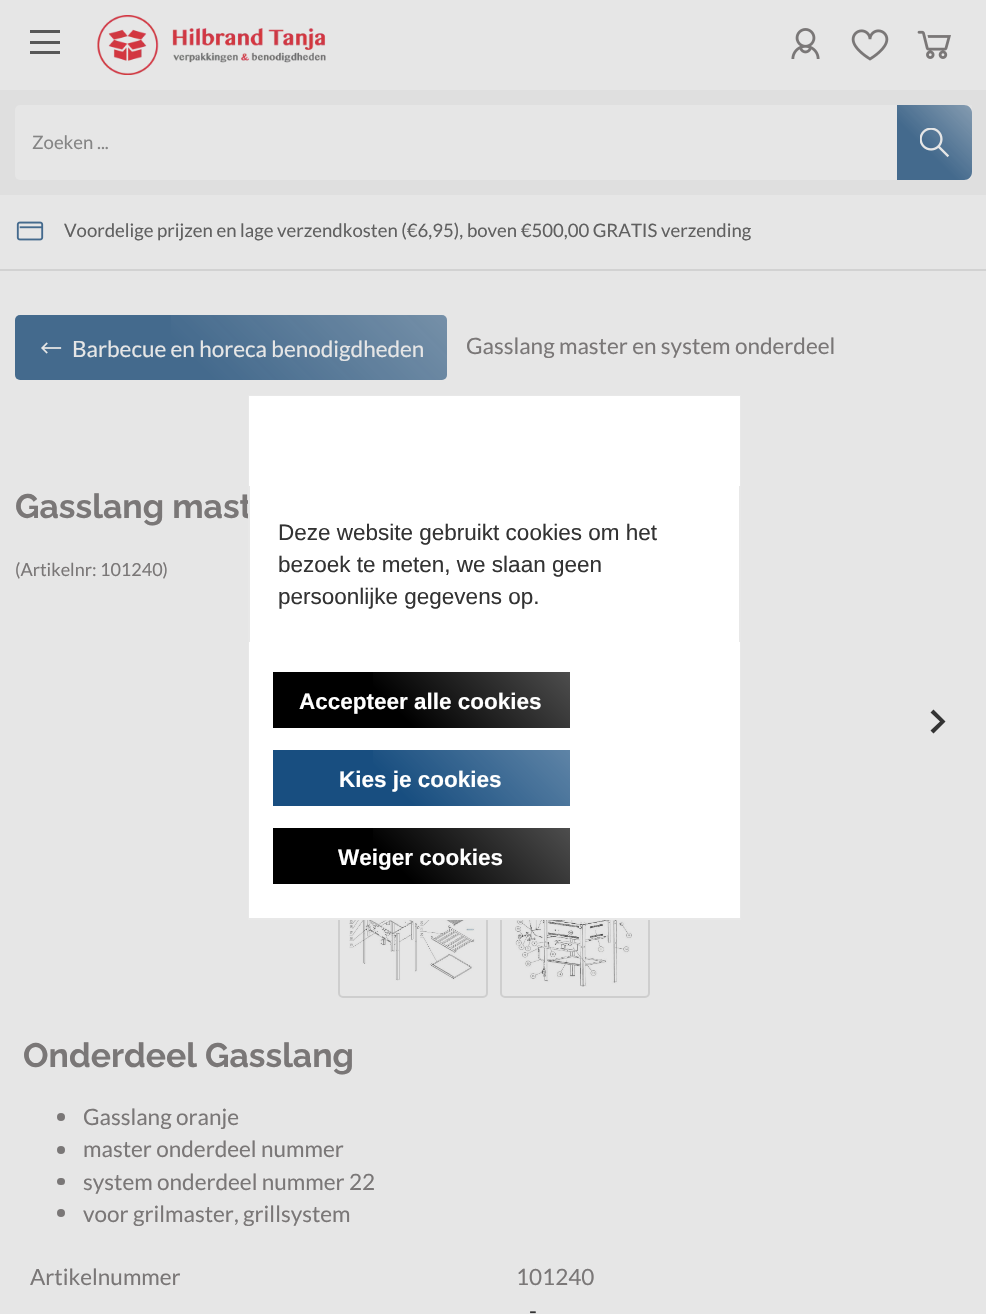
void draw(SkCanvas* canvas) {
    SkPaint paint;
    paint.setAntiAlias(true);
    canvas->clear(0xFFE6E6E6);
    paint.setColor(0xFF575757);
    canvas->drawRect(SkRect::MakeXYWH(30, 30, 30, 3), paint);
    canvas->drawRect(SkRect::MakeXYWH(30, 41, 30, 3), paint);
    canvas->drawRect(SkRect::MakeXYWH(30, 51, 30, 3), paint);
    canvas->drawImageRect(SkImages::DeferredFromEncodedData(SkData::MakeFromFileName("img1.png")), SkRect::MakeXYWH(97, 15, 229, 60), SkSamplingOptions());
    canvas->drawImageRect(SkImages::DeferredFromEncodedData(SkData::MakeFromFileName("img2.png")), SkRect::MakeXYWH(791, 28, 29, 31), SkSamplingOptions());
    canvas->drawImageRect(SkImages::DeferredFromEncodedData(SkData::MakeFromFileName("img3.png")), SkRect::MakeXYWH(851, 29, 38, 32), SkSamplingOptions());
    canvas->drawImageRect(SkImages::DeferredFromEncodedData(SkData::MakeFromFileName("img4.png")), SkRect::MakeXYWH(917, 30, 34, 29), SkSamplingOptions());
    paint.setColor(0xFFDFDFDF);
    canvas->drawRect(SkRect::MakeXYWH(0, 90, 986, 105), paint);
    paint.setColor(0xFFE6E6E6);
    canvas->drawRoundRect(SkRect::MakeXYWH(15, 105, 957, 75), 5, 5, paint);
    SkFont font1(fontMgr->matchFamilyStyle("Lato", SkFontStyle::Normal()), 18.55f);
    font1.setSubpixel(true);
    paint.setColor(0xFF858585);
    canvas->drawString("Zoeken ...", 32, 149, font1, paint);
    paint.setColor(0xFF446A8D);
    canvas->drawPath(SkPathBuilder().moveTo(897, 105).lineTo(964, 105).cubicTo(968.5f, 105, 972, 108.5f, 972, 113).lineTo(972, 172).cubicTo(972, 176.5f, 968.5f, 180, 964, 180).lineTo(897, 180).close().detach(), paint);
    {
        const SkColor colors[] = {0x66E6E6E6, 0x00E6E6E6};
        const float stops[] = {0, 0.6f};
        const SkPoint ends[] = {{972, 105}, {897, 180}};
        paint.setShader(SkGradientShader::MakeLinear(ends, colors, stops, 2, SkTileMode::kClamp));
        paint.setAlpha(255);
    }
    canvas->drawRect(SkRect::MakeXYWH(897, 105, 75, 75), paint);
    canvas->drawImageRect(SkImages::DeferredFromEncodedData(SkData::MakeFromFileName("img5.png")), SkRect::MakeXYWH(920, 128, 30, 30), SkSamplingOptions());
    paint.setShader(nullptr);
    paint.setColor(0xFFD2D2D2);
    canvas->drawRect(SkRect::MakeXYWH(0, 269, 986, 2), paint);
    canvas->drawImageRect(SkImages::DeferredFromEncodedData(SkData::MakeFromFileName("img6.png")), SkRect::MakeXYWH(16, 221, 28, 20), SkSamplingOptions());
    paint.setColor(0xFF606060);
    canvas->drawString("Voordelige prijzen en lage verzendkosten (€6,95), boven €500,00 GRATIS verzending", 64, 237, font1, paint);
    paint.setColor(0xFF446A8D);
    canvas->drawRoundRect(SkRect::MakeXYWH(15, 315, 432, 65), 5, 5, paint);
    {
        const SkColor colors[] = {0x4DE6E6E6, 0x00E6E6E6};
        const float stops[] = {0, 0.6f};
        const SkPoint ends[] = {{355, 223}, {107, 471}};
        paint.setShader(SkGradientShader::MakeLinear(ends, colors, stops, 2, SkTileMode::kClamp));
        paint.setAlpha(255);
    }
    canvas->drawRect(SkRect::MakeXYWH(171, 315, 276, 65), paint);
    canvas->drawImageRect(SkImages::DeferredFromEncodedData(SkData::MakeFromFileName("img7.png")), SkRect::MakeXYWH(41, 342, 21, 12), SkSamplingOptions());
    SkFont font2(fontMgr->matchFamilyStyle("Lato", SkFontStyle::Normal()), 22.5f);
    font2.setSubpixel(true);
    paint.setShader(nullptr);
    paint.setColor(0xFFE6E6E6);
    canvas->drawString("Barbecue en horeca benodigdheden", 72, 357, font2, paint);
    paint.setColor(0xFF7A7777);
    canvas->drawString("Gasslang master en system onderdeel", 466, 354, font2, paint);
    SkFont font3(fontMgr->matchFamilyStyle("Raleway", SkFontStyle::Bold()), 33.75f);
    font3.setSubpixel(true);
    canvas->drawString("Gasslang mast", 15, 518, font3, paint);
    SkFont font4(fontMgr->matchFamilyStyle("Lato", SkFontStyle::Normal()), 18);
    font4.setSubpixel(true);
    canvas->drawString("(Artikelnr: 101240)", 15, 576, font4, paint);
    paint.setColor(0xFF333333);
    canvas->drawPath(SkPathBuilder().moveTo(933.5f, 709.5f).lineTo(930.5f, 712.5f).lineTo(940, 721.5f).lineTo(930.5f, 730.5f).lineTo(933.5f, 733.5f).lineTo(945.5f, 721.5f).close().detach(), paint);
    paint.setStyle(SkPaint::kStroke_Style);
    paint.setStrokeWidth(2);
    paint.setColor(0xFFCECECE);
    canvas->drawRoundRect(SkRect::MakeXYWH(339, 849, 148, 148), 4, 4, paint);
    canvas->drawImageRect(SkImages::DeferredFromEncodedData(SkData::MakeFromFileName("img8.png")), SkRect::MakeXYWH(349, 920, 129, 61), SkSamplingOptions());
    canvas->drawRoundRect(SkRect::MakeXYWH(501, 849, 148, 148), 4, 4, paint);
    canvas->drawImageRect(SkImages::DeferredFromEncodedData(SkData::MakeFromFileName("img9.png")), SkRect::MakeXYWH(515, 920, 117, 67), SkSamplingOptions());
    paint.setStyle(SkPaint::kFill_Style);
    paint.setColor(0xFF7A7777);
    canvas->drawString("Onderdeel Gasslang", 23, 1067, font3, paint);
    canvas->drawCircle(61, 1117, 4, paint);
    canvas->drawString("Gasslang oranje", 83, 1125, font2, paint);
    canvas->drawCircle(61, 1150, 4, paint);
    canvas->drawString("master onderdeel nummer", 83, 1157, font2, paint);
    canvas->drawRoundRect(SkRect::MakeXYWH(57, 1178, 8, 7), 3.5f, 3.5f, paint);
    canvas->drawString("system onderdeel nummer 22", 83, 1190, font2, paint);
    canvas->drawCircle(61, 1213, 4, paint);
    canvas->drawString("voor grilmaster, grillsystem", 83, 1222, font2, paint);
    canvas->drawString("Artikelnummer", 30, 1285, font2, paint);
    canvas->drawString("101240", 516, 1285, font2, paint);
    paint.setColor(0xFF333333);
    canvas->drawString("-", 529, 1319, font2, paint);
    paint.setColor(0xFFFFFFFF);
    canvas->drawRect(SkRect::MakeXYWH(250, 486, 489, 156), paint);
    paint.setStyle(SkPaint::kStroke_Style);
    paint.setColor(0xFFE8E8E8);
    canvas->drawRect(SkRect::MakeXYWH(249, 396, 491, 523), paint);
    paint.setStyle(SkPaint::kFill_Style);
    paint.setColor(0xFFFFFFFF);
    canvas->drawRect(SkRect::MakeXYWH(249, 396, 491, 90), paint);
    SkFont font5(fontMgr->matchFamilyStyle("Liberation Sans", SkFontStyle::Normal()), 22.5f);
    font5.setSubpixel(true);
    paint.setColor(0xFF333333);
    canvas->drawString("Deze website gebruikt cookies om het", 278, 540, font5, paint);
    canvas->drawString("bezoek te meten, we slaan geen", 278, 572, font5, paint);
    canvas->drawString("persoonlijke gegevens op.", 278, 604, font5, paint);
    paint.setColor(0xFFFFFFFF);
    canvas->drawRect(SkRect::MakeXYWH(249, 642, 491, 276), paint);
    paint.setColor(0xFF000000);
    canvas->drawRect(SkRect::MakeXYWH(273, 672, 297, 56), paint);
    {
        const SkColor colors[] = {0x4DFFFFFF, 0x00FFFFFF};
        const float stops[] = {0, 0.6f};
        const SkPoint ends[] = {{509, 612}, {333, 788}};
        paint.setShader(SkGradientShader::MakeLinear(ends, colors, stops, 2, SkTileMode::kClamp));
        paint.setAlpha(255);
    }
    canvas->drawRect(SkRect::MakeXYWH(373, 672, 197, 56), paint);
    SkFont font6(fontMgr->matchFamilyStyle("Liberation Sans", SkFontStyle::Bold()), 22.5f);
    font6.setSubpixel(true);
    paint.setShader(nullptr);
    paint.setColor(0xFFFFFFFF);
    canvas->drawString("Accepteer alle cookies", 299, 709, font6, paint);
    paint.setColor(0xFF184E80);
    canvas->drawRect(SkRect::MakeXYWH(273, 750, 297, 56), paint);
    {
        const SkColor colors[] = {0x4DFFFFFF, 0x00FFFFFF};
        const float stops[] = {0, 0.6f};
        const SkPoint ends[] = {{509, 690}, {333, 866}};
        paint.setShader(SkGradientShader::MakeLinear(ends, colors, stops, 2, SkTileMode::kClamp));
        paint.setAlpha(255);
    }
    canvas->drawRect(SkRect::MakeXYWH(373, 750, 197, 56), paint);
    paint.setShader(nullptr);
    paint.setColor(0xFFFFFFFF);
    canvas->drawString("Kies je cookies", 339, 787, font6, paint);
    paint.setColor(0xFF000000);
    canvas->drawRect(SkRect::MakeXYWH(273, 828, 297, 56), paint);
    {
        const SkColor colors[] = {0x4DFFFFFF, 0x00FFFFFF};
        const float stops[] = {0, 0.6f};
        const SkPoint ends[] = {{509, 768}, {333, 944}};
        paint.setShader(SkGradientShader::MakeLinear(ends, colors, stops, 2, SkTileMode::kClamp));
        paint.setAlpha(255);
    }
    canvas->drawRect(SkRect::MakeXYWH(373, 828, 197, 56), paint);
    paint.setShader(nullptr);
    paint.setColor(0xFFFFFFFF);
    canvas->drawString("Weiger cookies", 338, 865, font6, paint);
}
